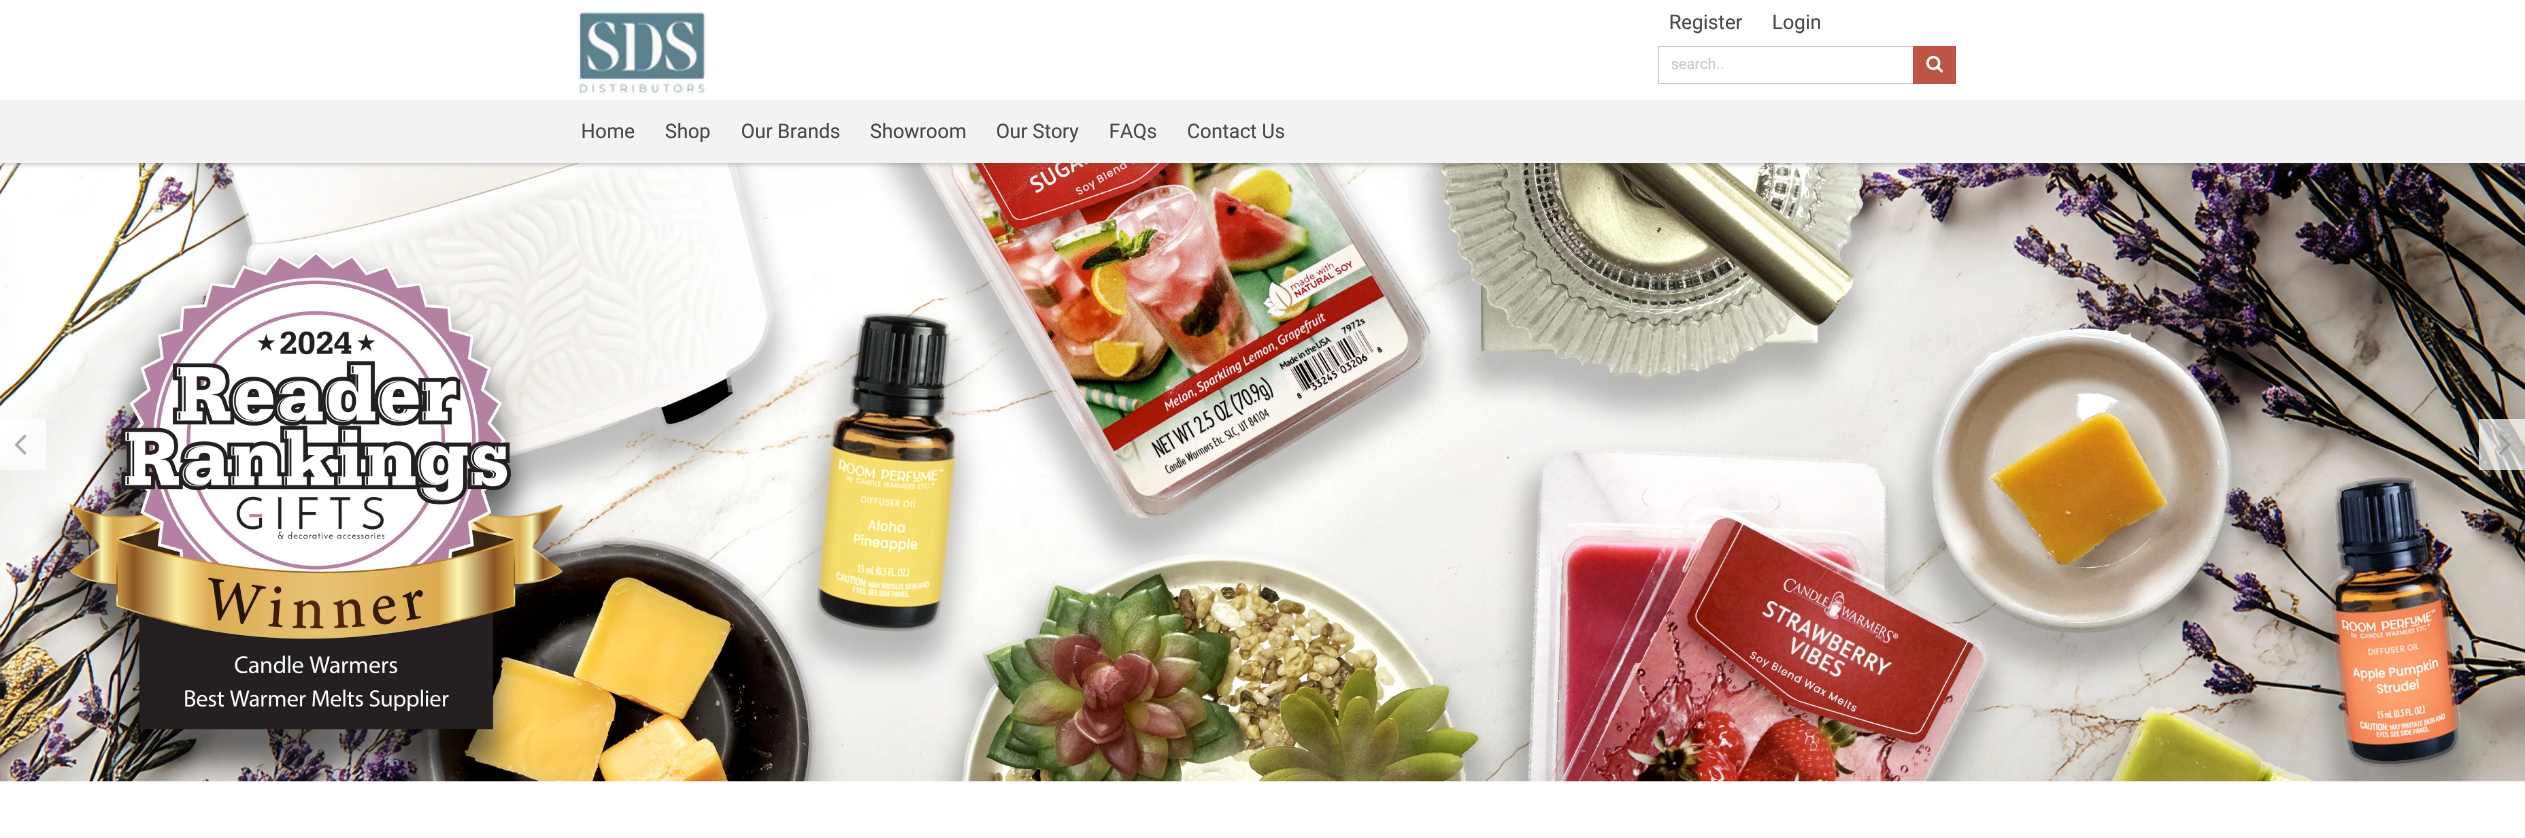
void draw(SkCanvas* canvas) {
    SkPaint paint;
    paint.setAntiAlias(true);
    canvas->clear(0xFFFFFFFF);
    canvas->drawImageRect(SkImages::DeferredFromEncodedData(SkData::MakeFromFileName("img3.png")), SkRect::MakeXYWH(0, 163, 2525, 619), SkSamplingOptions());
    paint.setColor(0x804A4A4A);
    paint.setMaskFilter(SkMaskFilter::MakeBlur(kNormal_SkBlurStyle, 3));
    canvas->drawRect(SkRect::MakeXYWH(3, 105, 2520, 58), paint);
    paint.setMaskFilter(nullptr);
    paint.setColor(0xFFFFFFFF);
    canvas->drawRect(SkRect::MakeXYWH(7, 99, 2512, 1), paint);
    canvas->drawImageRect(SkImages::DeferredFromEncodedData(SkData::MakeFromFileName("img1.png")), SkRect::MakeXYWH(578, 6, 131, 91), SkSamplingOptions());
    SkFont font1(fontMgr->matchFamilyStyle("Roboto", SkFontStyle::Normal()), 20);
    font1.setSubpixel(true);
    paint.setColor(0xFF4A4A4A);
    canvas->drawString("Register", 1669, 29, font1, paint);
    canvas->drawString("Login", 1772, 29, font1, paint);
    paint.setStyle(SkPaint::kStroke_Style);
    paint.setStrokeWidth(1);
    paint.setColor(0xFFCACACA);
    canvas->drawRect(SkRect::MakeXYWH(1658.5f, 46.5f, 255, 37), paint);
    SkFont font2(fontMgr->matchFamilyStyle("Roboto", SkFontStyle::Normal()), 15);
    font2.setSubpixel(true);
    paint.setStyle(SkPaint::kFill_Style);
    canvas->drawString("search..", 1671, 69, font2, paint);
    paint.setColor(0xFFBE5446);
    canvas->drawRect(SkRect::MakeXYWH(1913, 46, 43, 38), paint);
    canvas->drawImageRect(SkImages::DeferredFromEncodedData(SkData::MakeFromFileName("img2.png")), SkRect::MakeXYWH(1926, 55, 17, 18), SkSamplingOptions());
    paint.setColor(0xFFF3F3F4);
    canvas->drawRect(SkRect::MakeXYWH(0, 100, 2525, 63), paint);
    paint.setColor(0xFF4A4A4A);
    canvas->drawString("Home", 581, 138, font1, paint);
    canvas->drawString("Shop", 665, 138, font1, paint);
    canvas->drawString("Our Brands", 741, 138, font1, paint);
    canvas->drawString("Showroom", 870, 138, font1, paint);
    canvas->drawString("Our Story", 996, 138, font1, paint);
    canvas->drawString("FAQs", 1109, 138, font1, paint);
    canvas->drawString("Contact Us", 1187, 138, font1, paint);
    paint.setColor(0xB3FFFFFF);
    canvas->drawRect(SkRect::MakeXYWH(0, 419, 46, 51), paint);
    canvas->drawImageRect(SkImages::DeferredFromEncodedData(SkData::MakeFromFileName("img4.png")), SkRect::MakeXYWH(14, 434, 13, 21), SkSamplingOptions());
    canvas->drawRect(SkRect::MakeXYWH(2479, 419, 46, 51), paint);
    canvas->drawImageRect(SkImages::DeferredFromEncodedData(SkData::MakeFromFileName("img5.png")), SkRect::MakeXYWH(2499, 434, 12, 21), SkSamplingOptions());
}
